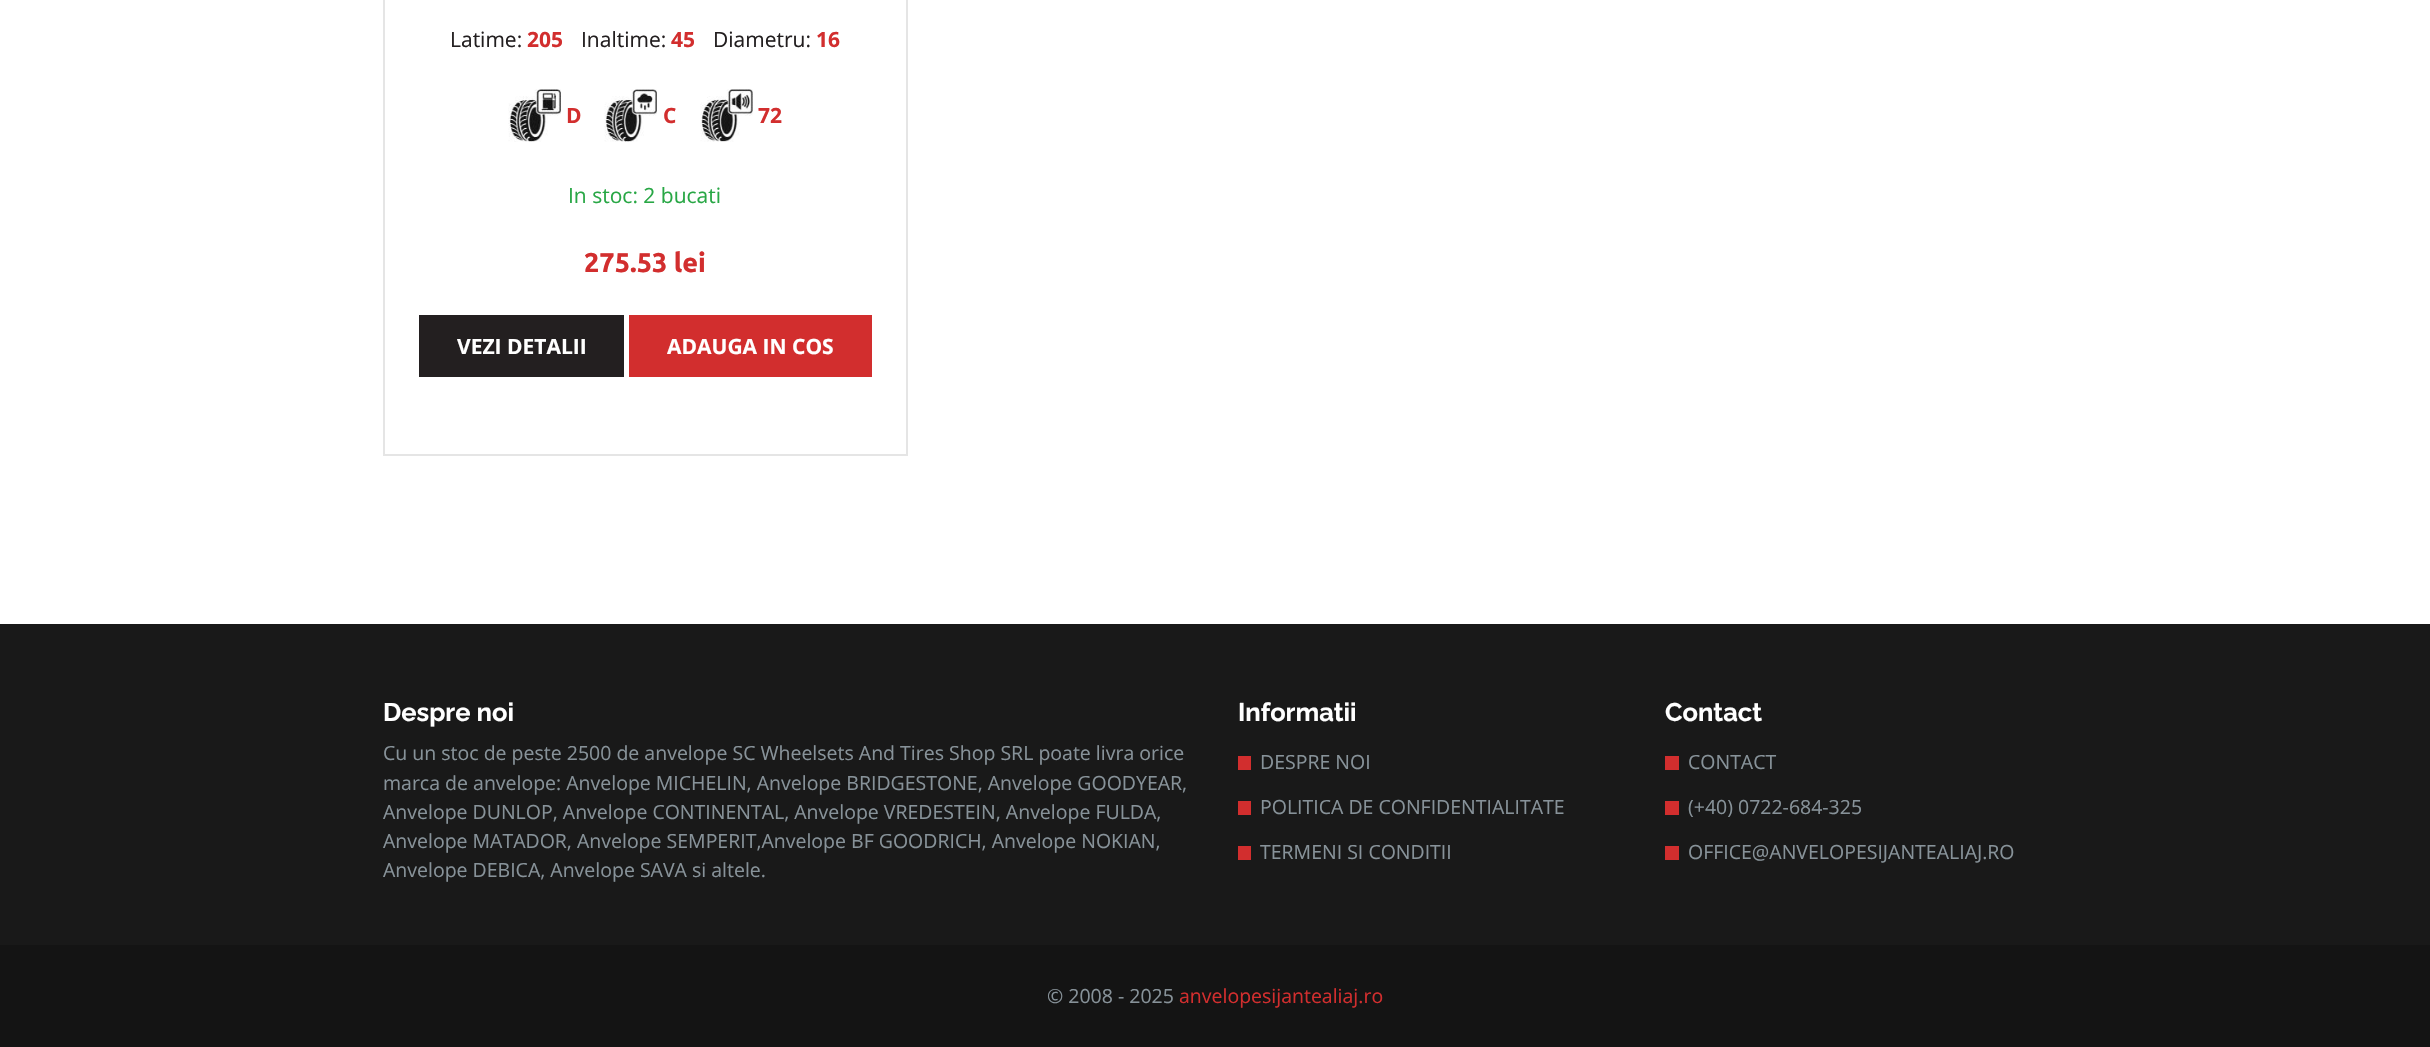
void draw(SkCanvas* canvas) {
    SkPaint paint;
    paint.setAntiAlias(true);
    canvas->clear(0xFFFFFFFF);
    paint.setStyle(SkPaint::kStroke_Style);
    paint.setStrokeWidth(2);
    paint.setColor(0xFFE5E5E5);
    canvas->drawRect(SkRect::MakeXYWH(384, -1, 523, 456), paint);
    SkFont font1(fontMgr->matchFamilyStyle("Open Sans", SkFontStyle::Normal()), 21);
    font1.setSubpixel(true);
    paint.setStyle(SkPaint::kFill_Style);
    paint.setColor(0xFF231F20);
    canvas->drawString("Latime:", 450, 47, font1, paint);
    SkFont font2(fontMgr->matchFamilyStyle("Open Sans", SkFontStyle::Bold()), 21);
    font2.setSubpixel(true);
    paint.setColor(0xFFD22E2E);
    canvas->drawString("205", 527, 47, font2, paint);
    paint.setColor(0xFF231F20);
    canvas->drawString("Inaltime:", 581, 47, font1, paint);
    paint.setColor(0xFFD22E2E);
    canvas->drawString("45", 671, 47, font2, paint);
    paint.setColor(0xFF231F20);
    canvas->drawString("Diametru:", 713, 47, font1, paint);
    paint.setColor(0xFFD22E2E);
    canvas->drawString("16", 816, 47, font2, paint);
    canvas->drawImageRect(SkImages::DeferredFromEncodedData(SkData::MakeFromFileName("img1.png")), SkRect::MakeXYWH(508, 89, 53, 53), SkSamplingOptions());
    canvas->drawString("D", 566, 123, font2, paint);
    canvas->drawImageRect(SkImages::DeferredFromEncodedData(SkData::MakeFromFileName("img2.png")), SkRect::MakeXYWH(604, 89, 53, 53), SkSamplingOptions());
    canvas->drawString("C", 663, 123, font2, paint);
    canvas->drawImageRect(SkImages::DeferredFromEncodedData(SkData::MakeFromFileName("img3.png")), SkRect::MakeXYWH(700, 89, 53, 53), SkSamplingOptions());
    canvas->drawString("72", 758, 123, font2, paint);
    paint.setColor(0xFF28A745);
    canvas->drawString("In stoc: 2 bucati", 568, 203, font1, paint);
    SkFont font3(fontMgr->matchFamilyStyle("Ubuntu", SkFontStyle::Bold()), 27);
    font3.setSubpixel(true);
    paint.setColor(0xFFD22E2E);
    canvas->drawString("275.53 lei", 584, 272, font3, paint);
    paint.setColor(0xFF231F20);
    canvas->drawRect(SkRect::MakeXYWH(419, 315, 205, 62), paint);
    paint.setColor(0xFFFFFFFF);
    canvas->drawString("VEZI DETALII", 457, 354, font2, paint);
    paint.setColor(0xFFD22E2E);
    canvas->drawRect(SkRect::MakeXYWH(629, 315, 243, 62), paint);
    paint.setColor(0xFFFFFFFF);
    canvas->drawString("ADAUGA IN COS", 667, 354, font2, paint);
    paint.setColor(0xFF191919);
    canvas->drawRect(SkRect::MakeXYWH(0, 624, 2430, 321), paint);
    SkFont font4(fontMgr->matchFamilyStyle("Raleway", SkFontStyle::Bold()), 25.5f);
    font4.setSubpixel(true);
    paint.setColor(0xFFFFFFFF);
    canvas->drawString("Despre noi", 383, 721, font4, paint);
    SkFont font5(fontMgr->matchFamilyStyle("Open Sans", SkFontStyle::Normal()), 19.5f);
    font5.setSubpixel(true);
    paint.setColor(0xFF879299);
    canvas->drawString("Cu un stoc de peste 2500 de anvelope SC Wheelsets And Tires Shop SRL poate livra orice", 383, 760, font5, paint);
    canvas->drawString("marca de anvelope: Anvelope MICHELIN, Anvelope BRIDGESTONE, Anvelope GOODYEAR,", 383, 790, font5, paint);
    canvas->drawString("Anvelope DUNLOP, Anvelope CONTINENTAL, Anvelope VREDESTEIN, Anvelope FULDA,", 383, 819, font5, paint);
    canvas->drawString("Anvelope MATADOR, Anvelope SEMPERIT,Anvelope BF GOODRICH, Anvelope NOKIAN,", 383, 848, font5, paint);
    canvas->drawString("Anvelope DEBICA, Anvelope SAVA si altele.", 383, 877, font5, paint);
    paint.setColor(0xFFFFFFFF);
    canvas->drawString("Informatii", 1238, 721, font4, paint);
    paint.setColor(0xFFD22E2E);
    canvas->drawRect(SkRect::MakeXYWH(1238, 756, 13, 14), paint);
    paint.setColor(0xFF879299);
    canvas->drawString("DESPRE NOI", 1260, 769, font5, paint);
    paint.setColor(0xFFD22E2E);
    canvas->drawRect(SkRect::MakeXYWH(1238, 801, 13, 14), paint);
    paint.setColor(0xFF879299);
    canvas->drawString("POLITICA DE CONFIDENTIALITATE", 1260, 814, font5, paint);
    paint.setColor(0xFFD22E2E);
    canvas->drawRect(SkRect::MakeXYWH(1238, 846, 13, 14), paint);
    paint.setColor(0xFF879299);
    canvas->drawString("TERMENI SI CONDITII", 1260, 859, font5, paint);
    paint.setColor(0xFFFFFFFF);
    canvas->drawString("Contact", 1665, 721, font4, paint);
    paint.setColor(0xFFD22E2E);
    canvas->drawRect(SkRect::MakeXYWH(1665, 756, 14, 14), paint);
    paint.setColor(0xFF879299);
    canvas->drawString("CONTACT", 1688, 769, font5, paint);
    paint.setColor(0xFFD22E2E);
    canvas->drawRect(SkRect::MakeXYWH(1665, 801, 14, 14), paint);
    paint.setColor(0xFF879299);
    canvas->drawString("(+40) 0722-684-325", 1688, 814, font5, paint);
    paint.setColor(0xFFD22E2E);
    canvas->drawRect(SkRect::MakeXYWH(1665, 846, 14, 14), paint);
    paint.setColor(0xFF879299);
    canvas->drawString("OFFICE@ANVELOPESIJANTEALIAJ.RO", 1688, 859, font5, paint);
    paint.setColor(0xFF141414);
    canvas->drawRect(SkRect::MakeXYWH(0, 945, 2430, 102), paint);
    paint.setColor(0xFF879299);
    canvas->drawString("© 2008 - 2025", 1047, 1003, font5, paint);
    paint.setColor(0xFFD22E2E);
    canvas->drawString("anvelopesijantealiaj.ro", 1179, 1003, font5, paint);
}
